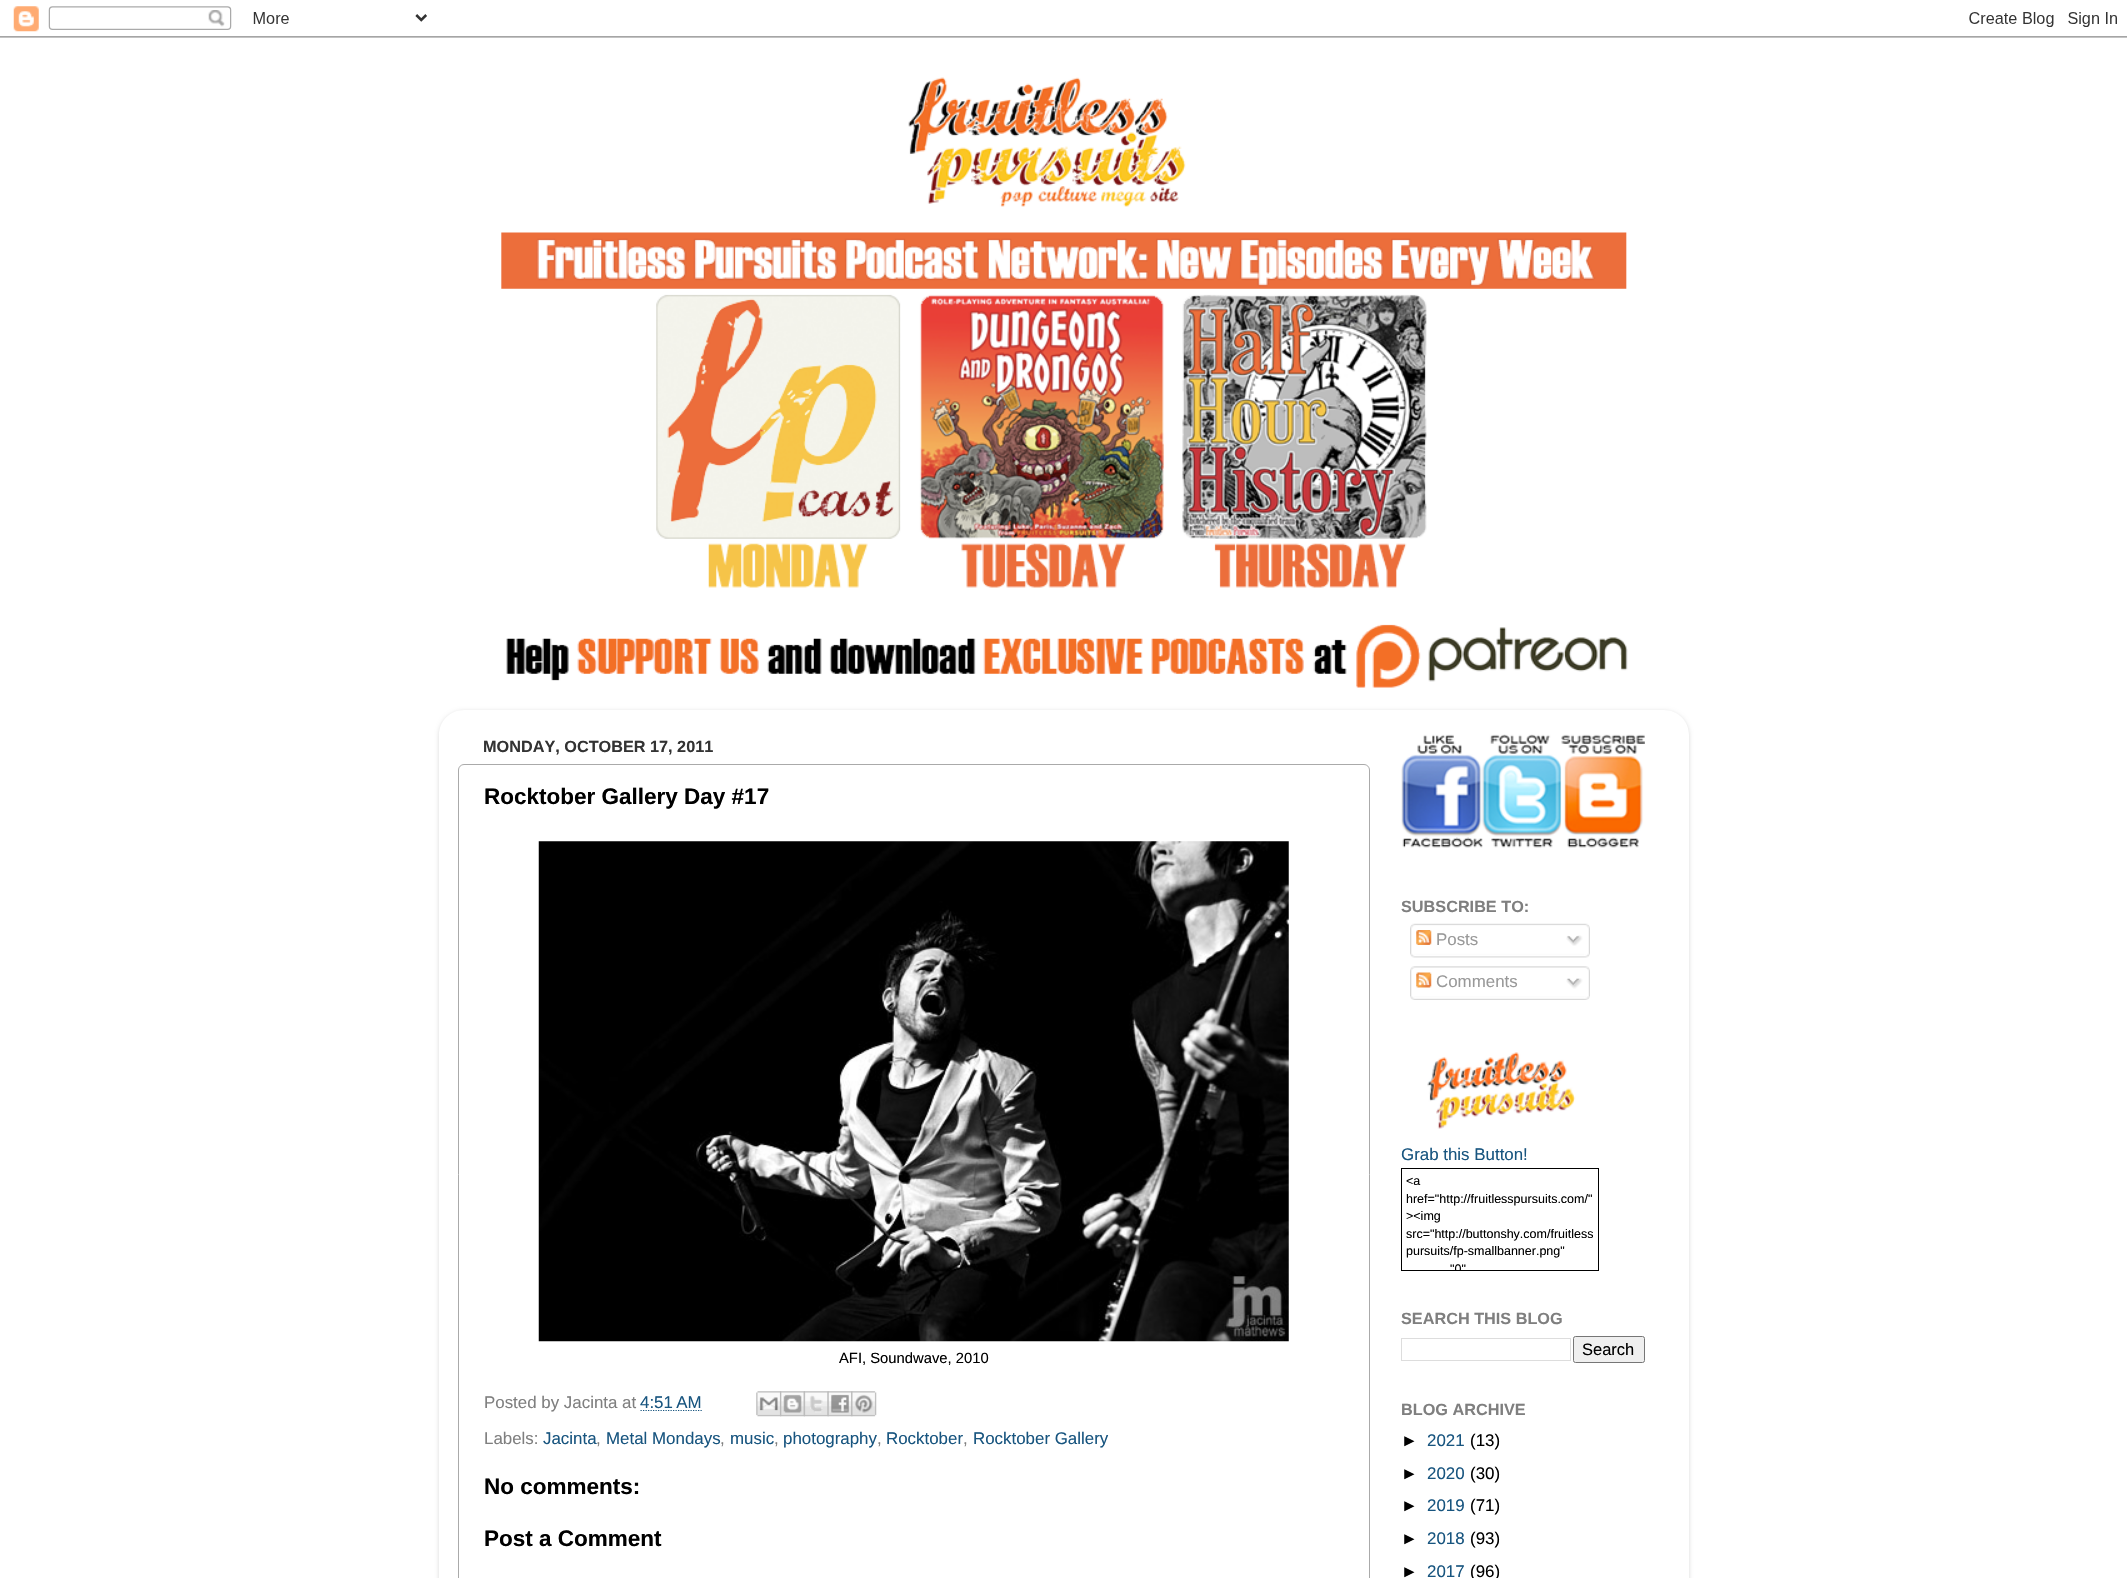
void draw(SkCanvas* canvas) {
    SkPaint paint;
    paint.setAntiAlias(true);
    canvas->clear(0xFFFFFFFF);
    canvas->drawImageRect(SkImages::DeferredFromEncodedData(SkData::MakeFromFileName("img1.png")), SkRect::MakeXYWH(0, 6, 2127, 32), SkSamplingOptions());
    canvas->drawImageRect(SkImages::DeferredFromEncodedData(SkData::MakeFromFileName("img2.png")), SkRect::MakeXYWH(908, 77, 278, 130), SkSamplingOptions());
    canvas->drawImageRect(SkImages::DeferredFromEncodedData(SkData::MakeFromFileName("img3.png")), SkRect::MakeXYWH(501, 232, 1126, 356), SkSamplingOptions());
    canvas->drawImageRect(SkImages::DeferredFromEncodedData(SkData::MakeFromFileName("img4.png")), SkRect::MakeXYWH(506, 624, 1122, 64), SkSamplingOptions());
    canvas->save();
    canvas->clipPath(SkPathBuilder(SkPathFillType::kEvenOdd).moveTo(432, 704).lineTo(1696, 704).lineTo(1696, 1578).lineTo(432, 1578).close().moveTo(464, 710).lineTo(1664, 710).cubicTo(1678, 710, 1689, 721, 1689, 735).lineTo(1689, 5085).lineTo(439, 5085).lineTo(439, 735).cubicTo(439, 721, 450, 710, 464, 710).close().detach(), true);
    paint.setColor(0x26000000);
    paint.setMaskFilter(SkMaskFilter::MakeBlur(kNormal_SkBlurStyle, 2));
    canvas->drawRoundRect(SkRect::MakeXYWH(439, 711, 1250, 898), 25, 25, paint);
    paint.setMaskFilter(nullptr);
    canvas->restore();
    SkFont font1(fontMgr->matchFamilyStyle("Liberation Sans", SkFontStyle::Bold()), 16.25f);
    font1.setSubpixel(true);
    paint.setColor(0xFF333333);
    canvas->drawString("MONDAY, OCTOBER 17, 2011", 483, 752, font1, paint);
    paint.setStyle(SkPaint::kStroke_Style);
    paint.setStrokeWidth(1);
    paint.setColor(0xFFAAAAAA);
    canvas->drawRoundRect(SkRect::MakeXYWH(458.5f, 764.5f, 911, 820), 5.5f, 5.5f, paint);
    SkFont font2(fontMgr->matchFamilyStyle("Liberation Sans", SkFontStyle::Bold()), 22.5f);
    font2.setSubpixel(true);
    paint.setStyle(SkPaint::kFill_Style);
    paint.setColor(0xFF000000);
    canvas->drawString("Rocktober Gallery Day #17", 484, 804, font2, paint);
    canvas->drawImageRect(SkImages::DeferredFromEncodedData(SkData::MakeFromFileName("img5.png")), SkRect::MakeXYWH(538, 841, 751, 501), SkSamplingOptions());
    SkFont font3(fontMgr->matchFamilyStyle("Liberation Sans", SkFontStyle::Normal()), 14.8f);
    font3.setSubpixel(true);
    canvas->drawString("AFI, Soundwave, 2010", 839, 1363, font3, paint);
    SkFont font4(fontMgr->matchFamilyStyle("Liberation Sans", SkFontStyle::Normal()), 16.9f);
    font4.setSubpixel(true);
    paint.setColor(0xFF7F7F7F);
    canvas->drawString("Posted by Jacinta at", 484, 1408, font4, paint);
    paint.setColor(0xFF18557F);
    canvas->drawString("4:51 AM", 640, 1408, font4, paint);
    paint.setStyle(SkPaint::kStroke_Style);
    paint.setStrokeWidth(1.2f);
    paint.setPathEffect(SkDashPathEffect::Make({{1.25f, 1.25f}}, 0));
    canvas->drawPath(SkPathBuilder().moveTo(640.5f, 1410.5f).lineTo(702, 1410.5f).detach(), paint);
    paint.setPathEffect(nullptr);
    canvas->drawImageRect(SkImages::DeferredFromEncodedData(SkData::MakeFromFileName("img6.png")), SkRect::MakeXYWH(756, 1391, 26, 26), SkSamplingOptions());
    canvas->drawImageRect(SkImages::DeferredFromEncodedData(SkData::MakeFromFileName("img7.png")), SkRect::MakeXYWH(780, 1391, 25, 26), SkSamplingOptions());
    canvas->drawImageRect(SkImages::DeferredFromEncodedData(SkData::MakeFromFileName("img8.png")), SkRect::MakeXYWH(803, 1391, 26, 26), SkSamplingOptions());
    canvas->drawImageRect(SkImages::DeferredFromEncodedData(SkData::MakeFromFileName("img9.png")), SkRect::MakeXYWH(827, 1391, 26, 26), SkSamplingOptions());
    canvas->drawImageRect(SkImages::DeferredFromEncodedData(SkData::MakeFromFileName("img10.png")), SkRect::MakeXYWH(851, 1391, 26, 26), SkSamplingOptions());
    paint.setStyle(SkPaint::kFill_Style);
    paint.setColor(0xFF7F7F7F);
    canvas->drawString("Labels:", 484, 1444, font4, paint);
    paint.setColor(0xFF18557F);
    canvas->drawString("Jacinta", 543, 1444, font4, paint);
    paint.setColor(0xFF7F7F7F);
    canvas->drawString(",", 596, 1444, font4, paint);
    paint.setColor(0xFF18557F);
    canvas->drawString("Metal Mondays", 606, 1444, font4, paint);
    paint.setColor(0xFF7F7F7F);
    canvas->drawString(",", 720, 1444, font4, paint);
    paint.setColor(0xFF18557F);
    canvas->drawString("music", 730, 1444, font4, paint);
    paint.setColor(0xFF7F7F7F);
    canvas->drawString(",", 774, 1444, font4, paint);
    paint.setColor(0xFF18557F);
    canvas->drawString("photography", 783, 1444, font4, paint);
    paint.setColor(0xFF7F7F7F);
    canvas->drawString(",", 877, 1444, font4, paint);
    paint.setColor(0xFF18557F);
    canvas->drawString("Rocktober", 886, 1444, font4, paint);
    paint.setColor(0xFF7F7F7F);
    canvas->drawString(",", 963, 1444, font4, paint);
    paint.setColor(0xFF18557F);
    canvas->drawString("Rocktober Gallery", 973, 1444, font4, paint);
    paint.setColor(0xFF000000);
    canvas->drawString("No comments:", 484, 1494, font2, paint);
    canvas->drawString("Post a Comment", 484, 1546, font2, paint);
    canvas->drawImageRect(SkImages::DeferredFromEncodedData(SkData::MakeFromFileName("img11.png")), SkRect::MakeXYWH(1401, 734, 82, 114), SkSamplingOptions());
    canvas->drawImageRect(SkImages::DeferredFromEncodedData(SkData::MakeFromFileName("img12.png")), SkRect::MakeXYWH(1482, 734, 80, 114), SkSamplingOptions());
    canvas->drawImageRect(SkImages::DeferredFromEncodedData(SkData::MakeFromFileName("img13.png")), SkRect::MakeXYWH(1561, 734, 84, 114), SkSamplingOptions());
    paint.setColor(0xFF7F7F7F);
    canvas->drawString("SUBSCRIBE TO:", 1401, 912, font1, paint);
    canvas->drawImageRect(SkImages::DeferredFromEncodedData(SkData::MakeFromFileName("img14.png")), SkRect::MakeXYWH(1410, 923, 180, 31), SkSamplingOptions());
    canvas->drawImageRect(SkImages::DeferredFromEncodedData(SkData::MakeFromFileName("img15.png")), SkRect::MakeXYWH(1416, 930, 16, 15), SkSamplingOptions());
    paint.setColor(0xFF999999);
    canvas->drawString("Posts", 1436, 945, font4, paint);
    canvas->drawImageRect(SkImages::DeferredFromEncodedData(SkData::MakeFromFileName("img16.png")), SkRect::MakeXYWH(1566, 935, 17, 11), SkSamplingOptions());
    canvas->drawImageRect(SkImages::DeferredFromEncodedData(SkData::MakeFromFileName("img17.png")), SkRect::MakeXYWH(1410, 953, 180, 5), SkSamplingOptions());
    canvas->drawImageRect(SkImages::DeferredFromEncodedData(SkData::MakeFromFileName("img18.png")), SkRect::MakeXYWH(1410, 966, 180, 31), SkSamplingOptions());
    canvas->drawImageRect(SkImages::DeferredFromEncodedData(SkData::MakeFromFileName("img19.png")), SkRect::MakeXYWH(1416, 972, 16, 16), SkSamplingOptions());
    canvas->drawString("Comments", 1436, 987, font4, paint);
    canvas->drawImageRect(SkImages::DeferredFromEncodedData(SkData::MakeFromFileName("img20.png")), SkRect::MakeXYWH(1566, 978, 17, 11), SkSamplingOptions());
    canvas->drawImageRect(SkImages::DeferredFromEncodedData(SkData::MakeFromFileName("img21.png")), SkRect::MakeXYWH(1410, 996, 180, 4), SkSamplingOptions());
    canvas->drawImageRect(SkImages::DeferredFromEncodedData(SkData::MakeFromFileName("img22.png")), SkRect::MakeXYWH(1427, 1052, 149, 77), SkSamplingOptions());
    paint.setColor(0xFF18557F);
    canvas->drawString("Grab this Button!", 1401, 1160, font4, paint);
    paint.setStyle(SkPaint::kStroke_Style);
    paint.setStrokeWidth(1);
    paint.setColor(0xFF000000);
    canvas->drawRect(SkRect::MakeXYWH(1401.5f, 1168.5f, 197, 102), paint);
    SkFont font5(fontMgr->matchFamilyStyle("Liberation Sans", SkFontStyle::Normal()), 12.5f);
    font5.setSubpixel(true);
    paint.setStyle(SkPaint::kFill_Style);
    canvas->drawString("<a", 1406, 1185, font5, paint);
    canvas->drawString("href=\"http://fruitlesspursuits.com/\"", 1406, 1203, font5, paint);
    canvas->drawString("><img", 1406, 1220, font5, paint);
    canvas->drawString("src=\"http://buttonshy.com/fruitless", 1406, 1238, font5, paint);
    canvas->drawString("pursuits/fp-smallbanner.png\"", 1406, 1255, font5, paint);
    canvas->save();
    canvas->clipRect(SkRect::MakeXYWH(1403, 1169, 195, 101));
    canvas->drawString("\"0\"", 1450, 1273, font5, paint);
    canvas->restore();
    paint.setColor(0xFF7F7F7F);
    canvas->drawString("SEARCH THIS BLOG", 1401, 1324, font1, paint);
    paint.setStyle(SkPaint::kStroke_Style);
    paint.setColor(0xFFDDDDDD);
    canvas->drawRect(SkRect::MakeXYWH(1401.5f, 1338.5f, 169, 22), paint);
    paint.setStyle(SkPaint::kFill_Style);
    paint.setColor(0xFFEFEFEF);
    canvas->drawRoundRect(SkRect::MakeXYWH(1573.5f, 1336.5f, 71, 26), 2, 2, paint);
    paint.setStyle(SkPaint::kStroke_Style);
    paint.setColor(0xFF767676);
    canvas->drawRoundRect(SkRect::MakeXYWH(1573.5f, 1336.5f, 71, 26), 2, 2, paint);
    SkFont font6(fontMgr->matchFamilyStyle("Liberation Sans", SkFontStyle::Normal()), 16.5f);
    font6.setSubpixel(true);
    paint.setStyle(SkPaint::kFill_Style);
    paint.setColor(0xFF000000);
    canvas->drawString("Search", 1582, 1355, font6, paint);
    paint.setColor(0xFF7F7F7F);
    canvas->drawString("BLOG ARCHIVE", 1401, 1415, font1, paint);
    paint.setColor(0xFF000000);
    canvas->drawString("►", 1401, 1446, font4, paint);
    paint.setColor(0xFF18557F);
    canvas->drawString("2021", 1427, 1446, font4, paint);
    paint.setColor(0xFF000000);
    canvas->drawString("(13)", 1470, 1446, font4, paint);
    canvas->drawString("►", 1401, 1479, font4, paint);
    paint.setColor(0xFF18557F);
    canvas->drawString("2020", 1427, 1479, font4, paint);
    paint.setColor(0xFF000000);
    canvas->drawString("(30)", 1470, 1479, font4, paint);
    canvas->drawString("►", 1401, 1511, font4, paint);
    paint.setColor(0xFF18557F);
    canvas->drawString("2019", 1427, 1511, font4, paint);
    paint.setColor(0xFF000000);
    canvas->drawString("(71)", 1470, 1511, font4, paint);
    canvas->drawString("►", 1401, 1544, font4, paint);
    paint.setColor(0xFF18557F);
    canvas->drawString("2018", 1427, 1544, font4, paint);
    paint.setColor(0xFF000000);
    canvas->drawString("(93)", 1470, 1544, font4, paint);
    canvas->drawString("►", 1401, 1577, font4, paint);
    paint.setColor(0xFF18557F);
    canvas->drawString("2017", 1427, 1577, font4, paint);
    paint.setColor(0xFF000000);
    canvas->drawString("(96)", 1470, 1577, font4, paint);
}
